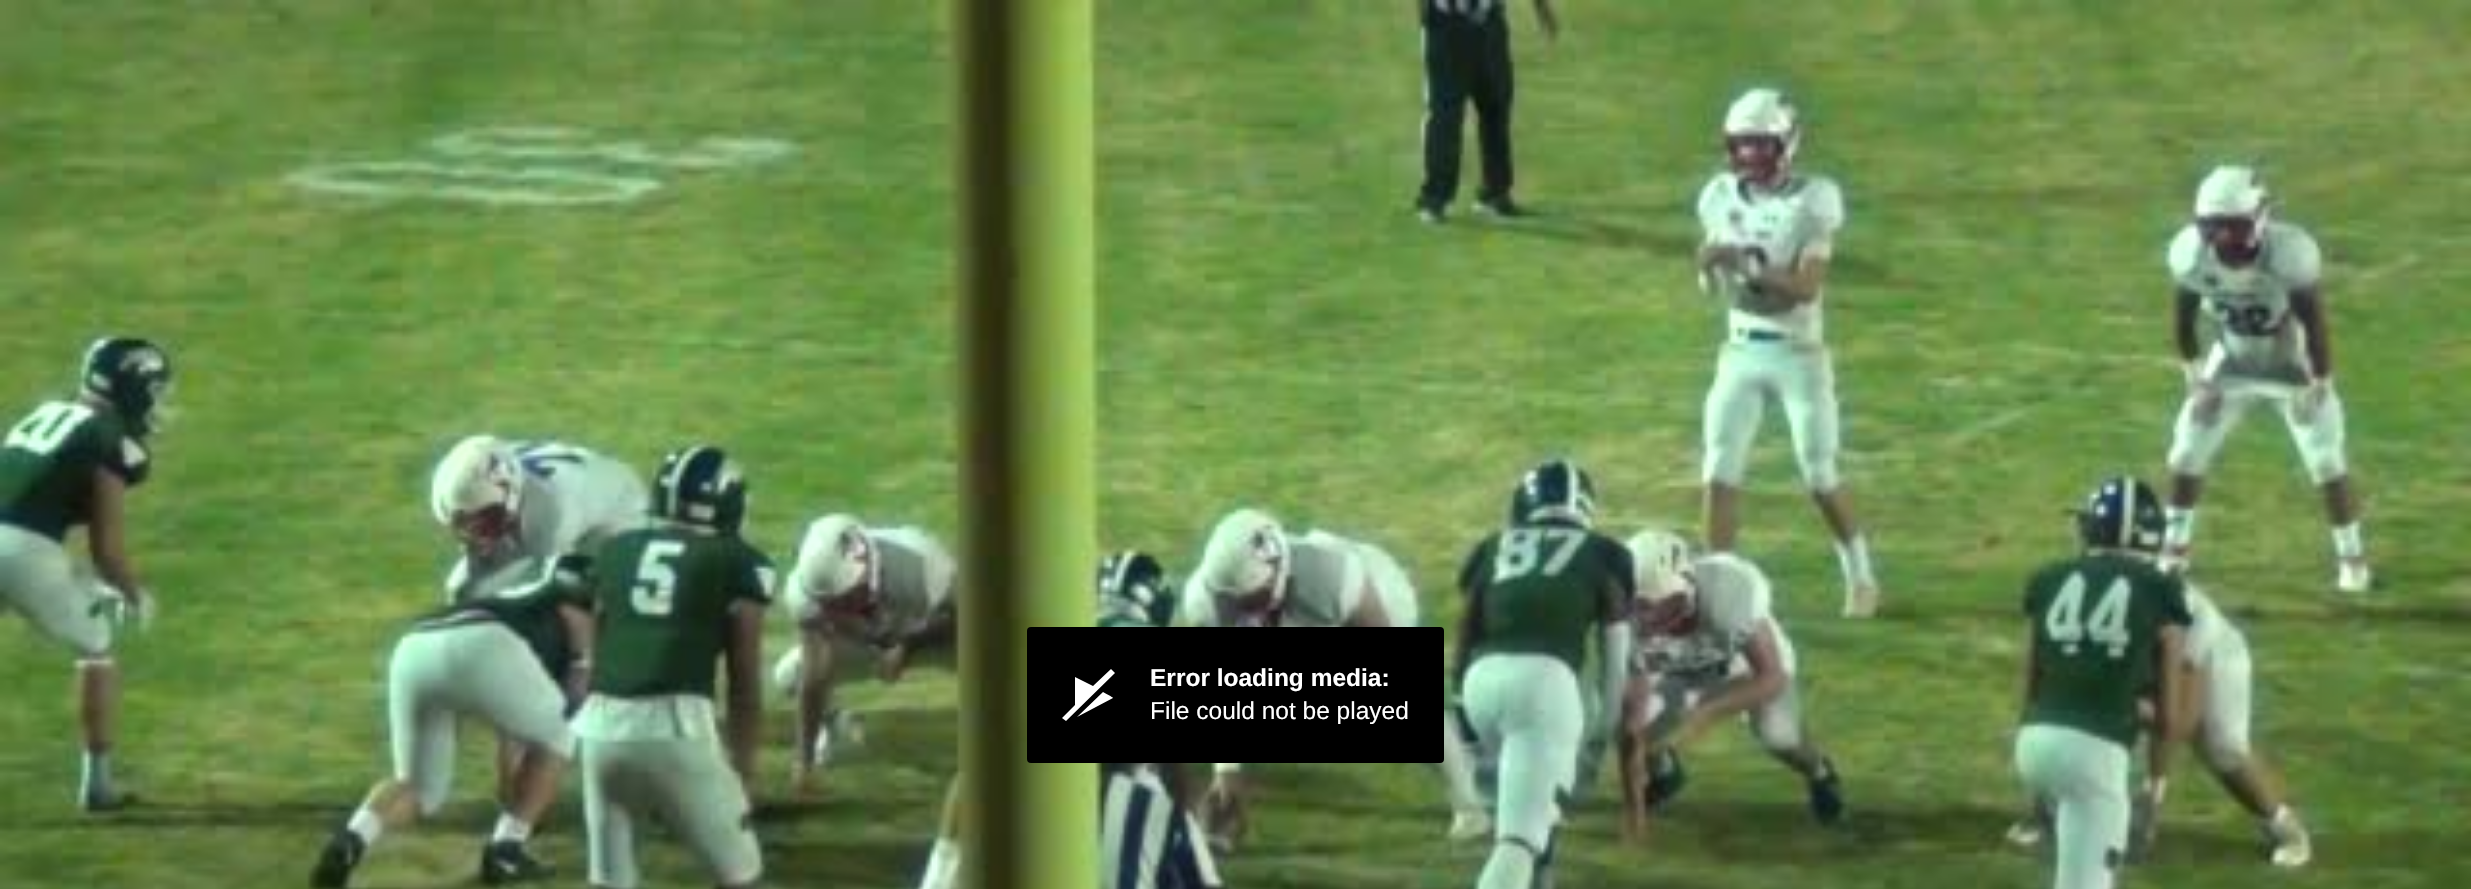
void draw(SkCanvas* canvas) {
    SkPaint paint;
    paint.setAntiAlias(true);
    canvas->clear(0xFFFFFFFF);
    canvas->drawImageRect(SkImages::DeferredFromEncodedData(SkData::MakeFromFileName("img1.png")), SkRect::MakeXYWH(0, 0, 2471, 889), SkSamplingOptions());
    paint.setColor(0xFF000000);
    canvas->drawRoundRect(SkRect::MakeXYWH(1027, 627, 417, 136), 4, 4, paint);
    paint.setColor(0xFFFFFFFF);
    canvas->drawPath(SkPathBuilder().moveTo(1113, 698).lineTo(1077, 717).lineTo(1103, 692).cubicTo(1112, 697, 1114, 698, 1113, 698).close().moveTo(1111, 669).lineTo(1093, 686).lineTo(1075, 677).lineTo(1075, 705).lineTo(1062, 718).lineTo(1066, 721).lineTo(1115, 673).close().detach(), paint);
    SkFont font1(fontMgr->matchFamilyStyle("Liberation Sans", SkFontStyle::Bold()), 24.5f);
    font1.setSubpixel(true);
    canvas->drawString("Error loading media:", 1150, 686, font1, paint);
    SkFont font2(fontMgr->matchFamilyStyle("Liberation Sans", SkFontStyle::Normal()), 24.5f);
    font2.setSubpixel(true);
    canvas->drawString("File could not be played", 1150, 719, font2, paint);
}
